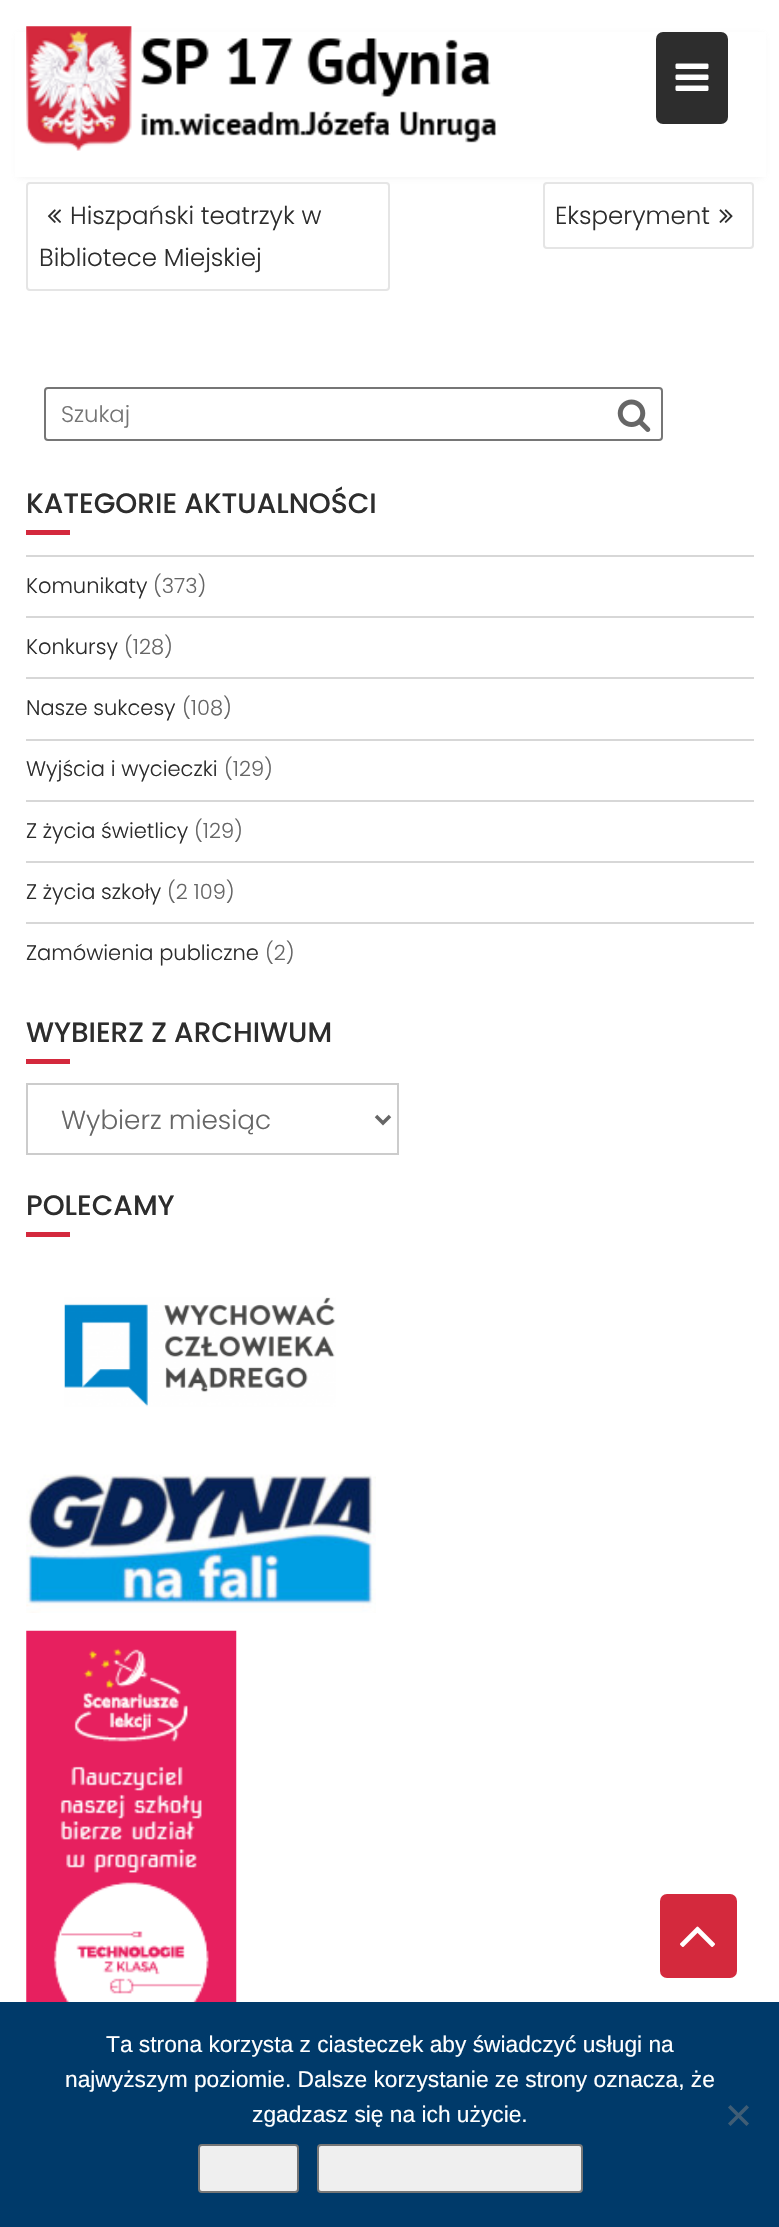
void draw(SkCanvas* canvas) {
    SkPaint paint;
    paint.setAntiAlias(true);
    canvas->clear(0xFFFFFFFF);
    paint.setStyle(SkPaint::kStroke_Style);
    paint.setStrokeWidth(2);
    paint.setColor(0xFFE5E5E5);
    canvas->drawRoundRect(SkRect::MakeXYWH(27, 183, 362, 107), 3, 3, paint);
    canvas->drawRoundRect(SkRect::MakeXYWH(544, 183, 209, 65), 3, 3, paint);
    paint.setStyle(SkPaint::kFill_Style);
    paint.setColor(0xE6EEEEEE);
    paint.setMaskFilter(SkMaskFilter::MakeBlur(kNormal_SkBlurStyle, 3.5f));
    canvas->drawRect(SkRect::MakeXYWH(18, 35, 745, 142), paint);
    paint.setMaskFilter(nullptr);
    paint.setColor(0xFFFFFFFF);
    canvas->drawRect(SkRect::MakeXYWH(15, 32, 751, 145), paint);
    canvas->drawImageRect(SkImages::DeferredFromEncodedData(SkData::MakeFromFileName("img1.png")), SkRect::MakeXYWH(26, 26, 471, 125), SkSamplingOptions());
    paint.setColor(0xFF2D2D2D);
    canvas->drawRoundRect(SkRect::MakeXYWH(656, 32, 72, 92), 7, 7, paint);
    canvas->drawImageRect(SkImages::DeferredFromEncodedData(SkData::MakeFromFileName("img2.png")), SkRect::MakeXYWH(675, 63, 34, 28), SkSamplingOptions());
    canvas->drawImageRect(SkImages::DeferredFromEncodedData(SkData::MakeFromFileName("img3.png")), SkRect::MakeXYWH(47, 209, 14, 14), SkSamplingOptions());
    SkFont font1(fontMgr->matchFamilyStyle("Poppins", SkFontStyle(300, SkFontStyle::kNormal_Width, SkFontStyle::kUpright_Slant)), 24.5f);
    font1.setSubpixel(true);
    canvas->drawString("Hiszpański teatrzyk w", 70, 224, font1, paint);
    canvas->drawString("Bibliotece Miejskiej", 39, 266, font1, paint);
    canvas->drawString("Eksperyment", 555, 224, font1, paint);
    canvas->drawImageRect(SkImages::DeferredFromEncodedData(SkData::MakeFromFileName("img4.png")), SkRect::MakeXYWH(719, 209, 14, 14), SkSamplingOptions());
    paint.setStyle(SkPaint::kStroke_Style);
    paint.setColor(0xFF767676);
    canvas->drawRoundRect(SkRect::MakeXYWH(45, 388, 617, 52), 3, 3, paint);
    SkFont font2(fontMgr->matchFamilyStyle("Poppins", SkFontStyle(300, SkFontStyle::kNormal_Width, SkFontStyle::kUpright_Slant)), 22.75f);
    font2.setSubpixel(true);
    paint.setStyle(SkPaint::kFill_Style);
    paint.setColor(0xFF757575);
    canvas->drawString("Szukaj", 61, 422, font2, paint);
    canvas->drawImageRect(SkImages::DeferredFromEncodedData(SkData::MakeFromFileName("img5.png")), SkRect::MakeXYWH(617, 399, 34, 33), SkSamplingOptions());
    SkFont font3(fontMgr->matchFamilyStyle("Poppins", SkFontStyle(500, SkFontStyle::kNormal_Width, SkFontStyle::kUpright_Slant)), 28);
    font3.setSubpixel(true);
    paint.setColor(0xFF2D2D2D);
    canvas->drawString("KATEGORIE AKTUALNOŚCI", 26, 513, font3, paint);
    paint.setColor(0xFFD4293D);
    canvas->drawRect(SkRect::MakeXYWH(26, 530, 44, 5), paint);
    paint.setColor(0xFFD7D7D7);
    canvas->drawRect(SkRect::MakeXYWH(26, 555, 728, 2), paint);
    SkFont font4(fontMgr->matchFamilyStyle("Poppins", SkFontStyle(300, SkFontStyle::kNormal_Width, SkFontStyle::kUpright_Slant)), 21);
    font4.setSubpixel(true);
    paint.setColor(0xFF2D2D2D);
    canvas->drawString("Komunikaty", 26, 593, font4, paint);
    paint.setColor(0xFF666666);
    canvas->drawString("(373)", 153, 593, font4, paint);
    paint.setColor(0xFFD7D7D7);
    canvas->drawRect(SkRect::MakeXYWH(26, 616, 728, 2), paint);
    paint.setColor(0xFF2D2D2D);
    canvas->drawString("Konkursy", 26, 654, font4, paint);
    paint.setColor(0xFF666666);
    canvas->drawString("(128)", 124, 654, font4, paint);
    paint.setColor(0xFFD7D7D7);
    canvas->drawRect(SkRect::MakeXYWH(26, 677, 728, 2), paint);
    paint.setColor(0xFF2D2D2D);
    canvas->drawString("Nasze sukcesy", 26, 715, font4, paint);
    paint.setColor(0xFF666666);
    canvas->drawString("(108)", 182, 715, font4, paint);
    paint.setColor(0xFFD7D7D7);
    canvas->drawRect(SkRect::MakeXYWH(26, 739, 728, 2), paint);
    paint.setColor(0xFF2D2D2D);
    canvas->drawString("Wyjścia i wycieczki", 26, 776, font4, paint);
    paint.setColor(0xFF666666);
    canvas->drawString("(129)", 224, 776, font4, paint);
    paint.setColor(0xFFD7D7D7);
    canvas->drawRect(SkRect::MakeXYWH(26, 800, 728, 2), paint);
    paint.setColor(0xFF2D2D2D);
    canvas->drawString("Z życia świetlicy", 26, 838, font4, paint);
    paint.setColor(0xFF666666);
    canvas->drawString("(129)", 194, 838, font4, paint);
    paint.setColor(0xFFD7D7D7);
    canvas->drawRect(SkRect::MakeXYWH(26, 861, 728, 2), paint);
    paint.setColor(0xFF2D2D2D);
    canvas->drawString("Z życia szkoły", 26, 899, font4, paint);
    paint.setColor(0xFF666666);
    canvas->drawString("(2 109)", 167, 899, font4, paint);
    paint.setColor(0xFFD7D7D7);
    canvas->drawRect(SkRect::MakeXYWH(26, 922, 728, 2), paint);
    paint.setColor(0xFF2D2D2D);
    canvas->drawString("Zamówienia publiczne", 26, 960, font4, paint);
    paint.setColor(0xFF666666);
    canvas->drawString("(2)", 265, 960, font4, paint);
    paint.setColor(0xFF2D2D2D);
    canvas->drawString("WYBIERZ Z ARCHIWUM", 26, 1042, font3, paint);
    paint.setColor(0xFFD4293D);
    canvas->drawRect(SkRect::MakeXYWH(26, 1059, 44, 5), paint);
    paint.setStyle(SkPaint::kStroke_Style);
    paint.setColor(0xFFCCCCCC);
    canvas->drawRect(SkRect::MakeXYWH(27, 1084, 371, 70), paint);
    paint.setStrokeWidth(3.5f);
    paint.setColor(0xFF666666);
    canvas->drawPath(SkPathBuilder().moveTo(376, 1116).lineTo(383, 1123).lineTo(390, 1116).detach(), paint);
    SkFont font5(fontMgr->matchFamilyStyle("Poppins", SkFontStyle(300, SkFontStyle::kNormal_Width, SkFontStyle::kUpright_Slant)), 26.25f);
    font5.setSubpixel(true);
    paint.setStyle(SkPaint::kFill_Style);
    canvas->drawString("Wybierz miesiąc", 61, 1129, font5, paint);
    paint.setColor(0xFF2D2D2D);
    canvas->drawString("POLECAMY", 26, 1215, font3, paint);
    paint.setColor(0xFFD4293D);
    canvas->drawRect(SkRect::MakeXYWH(26, 1232, 44, 5), paint);
    canvas->drawImageRect(SkImages::DeferredFromEncodedData(SkData::MakeFromFileName("img6.png")), SkRect::MakeXYWH(64, 1297, 272, 110), SkSamplingOptions());
    canvas->drawImageRect(SkImages::DeferredFromEncodedData(SkData::MakeFromFileName("img7.png")), SkRect::MakeXYWH(26, 1474, 350, 139), SkSamplingOptions());
    canvas->drawImageRect(SkImages::DeferredFromEncodedData(SkData::MakeFromFileName("img8.png")), SkRect::MakeXYWH(26, 1630, 211, 372), SkSamplingOptions());
    canvas->drawRoundRect(SkRect::MakeXYWH(660, 1894, 77, 84), 7, 7, paint);
    canvas->drawImageRect(SkImages::DeferredFromEncodedData(SkData::MakeFromFileName("img9.png")), SkRect::MakeXYWH(680, 1926, 35, 21), SkSamplingOptions());
    paint.setColor(0xFF003A6A);
    canvas->drawRect(SkRect::MakeXYWH(0, 2002, 779, 225), paint);
    SkFont font6(fontMgr->matchFamilyStyle("Liberation Sans", SkFontStyle::Normal()), 22.75f);
    font6.setSubpixel(true);
    paint.setColor(0xFFFFFFFF);
    canvas->drawString("Ta strona korzysta z ciasteczek aby świadczyć usługi na", 106, 2052, font6, paint);
    canvas->drawString("najwyższym poziomie. Dalsze korzystanie ze strony oznacza, że", 65, 2087, font6, paint);
    canvas->drawString("zgadzasz się na ich użycie.", 252, 2122, font6, paint);
    paint.setColor(0xFF405D75);
    canvas->drawPath(SkPathBuilder().moveTo(746.5f, 2105).lineTo(749, 2107.5f).lineTo(730.5f, 2126).lineTo(728, 2123.5f).close().detach(), paint);
    canvas->drawPath(SkPathBuilder().moveTo(728, 2107.5f).lineTo(730.5f, 2105).lineTo(749, 2123.5f).lineTo(746.5f, 2126).close().detach(), paint);
    paint.setColor(0xFFEFEFEF);
    canvas->drawRoundRect(SkRect::MakeXYWH(199, 2145, 99, 47), 3, 3, paint);
    paint.setStyle(SkPaint::kStroke_Style);
    paint.setStrokeWidth(2);
    paint.setColor(0xFF767676);
    canvas->drawRoundRect(SkRect::MakeXYWH(199, 2145, 99, 47), 3, 3, paint);
    paint.setStyle(SkPaint::kFill_Style);
    paint.setColor(0xFFEFEFEF);
    canvas->drawRoundRect(SkRect::MakeXYWH(318, 2145, 264, 47), 3, 3, paint);
    paint.setStyle(SkPaint::kStroke_Style);
    paint.setColor(0xFF767676);
    canvas->drawRoundRect(SkRect::MakeXYWH(318, 2145, 264, 47), 3, 3, paint);
}
